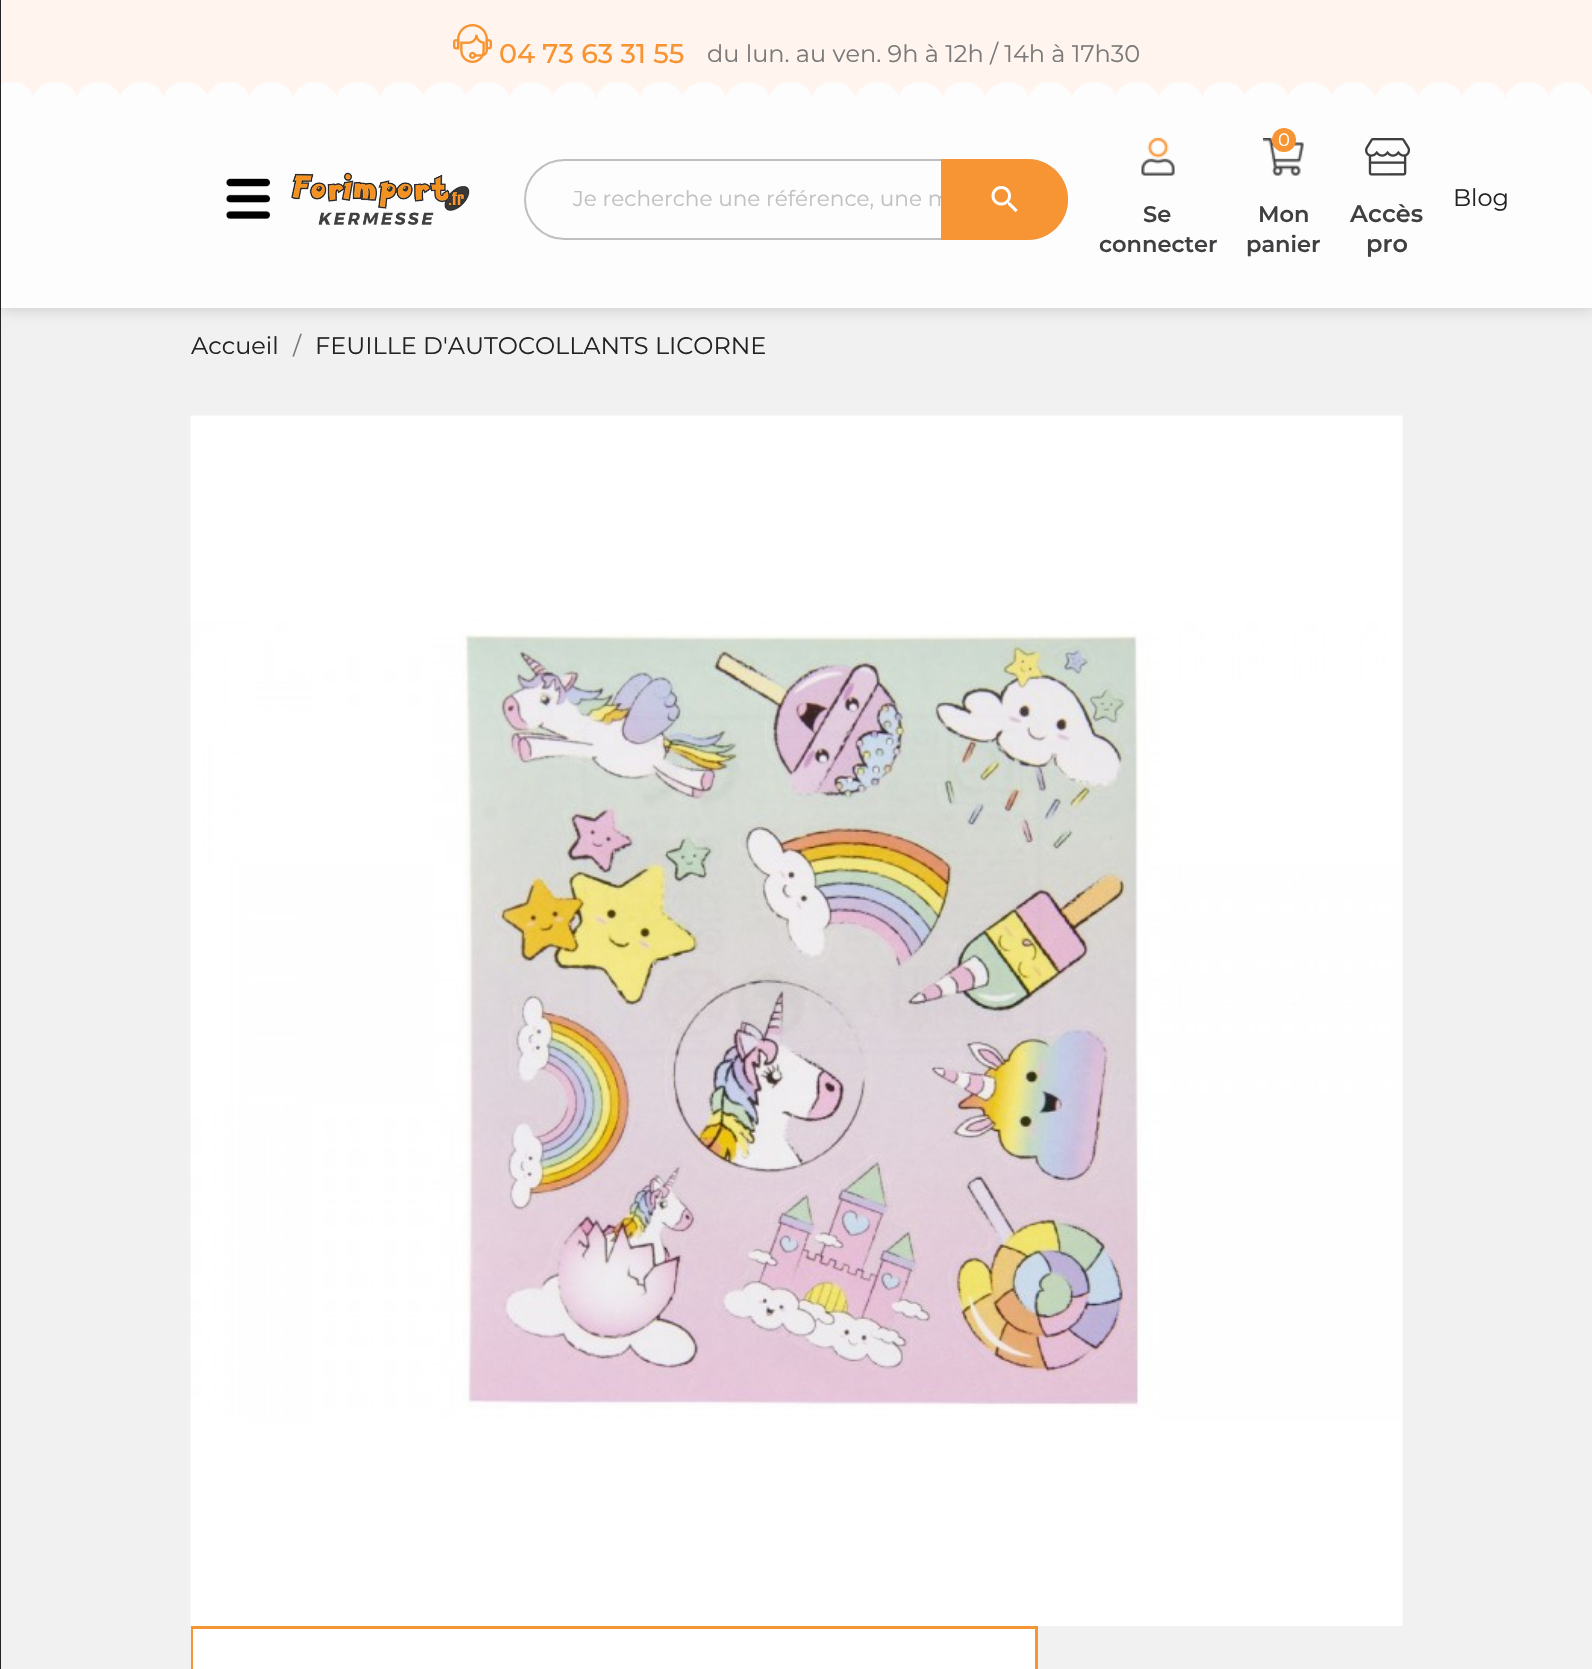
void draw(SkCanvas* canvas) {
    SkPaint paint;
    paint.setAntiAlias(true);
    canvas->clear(0xFFF1F1F1);
    paint.setColor(0x30000000);
    paint.setMaskFilter(SkMaskFilter::MakeBlur(kNormal_SkBlurStyle, 7.5f));
    canvas->drawRect(SkRect::MakeXYWH(0, 0, 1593, 308), paint);
    paint.setMaskFilter(nullptr);
    paint.setColor(0xFF242425);
    canvas->drawRect(SkRect::MakeXYWH(0, 0, 1, 1669), paint);
    paint.setColor(0xFFFDFDFD);
    canvas->drawRect(SkRect::MakeXYWH(1, 105, 1591, 203), paint);
    paint.setColor(0xFFFFF4EE);
    canvas->drawRect(SkRect::MakeXYWH(1, 0, 1591, 98), paint);
    canvas->drawImageRect(SkImages::DeferredFromEncodedData(SkData::MakeFromFileName("img1.png")), SkRect::MakeXYWH(453, 24, 39, 39), SkSamplingOptions());
    SkFont font1(fontMgr->matchFamilyStyle("Montserrat", SkFontStyle(500, SkFontStyle::kNormal_Width, SkFontStyle::kUpright_Slant)), 27);
    font1.setSubpixel(true);
    paint.setColor(0xFFF79534);
    canvas->drawString("04 73 63 31 55", 499, 63, font1, paint);
    SkFont font2(fontMgr->matchFamilyStyle("Montserrat", SkFontStyle::Normal()), 24);
    font2.setSubpixel(true);
    paint.setColor(0xFF7A7A7A);
    canvas->drawString("du lun. au ven. 9h à 12h / 14h à 17h30", 707, 62, font2, paint);
    canvas->drawImageRect(SkImages::DeferredFromEncodedData(SkData::MakeFromFileName("img2.png")), SkRect::MakeXYWH(1, 82, 1591, 23), SkSamplingOptions());
    canvas->drawImageRect(SkImages::DeferredFromEncodedData(SkData::MakeFromFileName("img3.png")), SkRect::MakeXYWH(226, 178, 44, 41), SkSamplingOptions());
    canvas->drawImageRect(SkImages::DeferredFromEncodedData(SkData::MakeFromFileName("img4.png")), SkRect::MakeXYWH(291, 172, 179, 53), SkSamplingOptions());
    paint.setStyle(SkPaint::kStroke_Style);
    paint.setStrokeWidth(2);
    paint.setColor(0xFFBFBFBF);
    canvas->drawRoundRect(SkRect::MakeXYWH(525, 160, 542, 79), 39.5f, 39.5f, paint);
    SkFont font3(fontMgr->matchFamilyStyle("Montserrat", SkFontStyle::Normal()), 21.6f);
    font3.setSubpixel(true);
    paint.setStyle(SkPaint::kFill_Style);
    paint.setColor(0xFFC1C1C1);
    canvas->drawString("Je recherche une référence, une m", 573, 206, font3, paint);
    paint.setColor(0xFFF79534);
    canvas->drawPath(SkPathBuilder().moveTo(941, 159).lineTo(1027.5f, 159).cubicTo(1050, 159, 1068, 177, 1068, 199.5f).cubicTo(1068, 222, 1050, 240, 1027.5f, 240).lineTo(941, 240).close().detach(), paint);
    canvas->drawImageRect(SkImages::DeferredFromEncodedData(SkData::MakeFromFileName("img5.png")), SkRect::MakeXYWH(991, 186, 27, 27), SkSamplingOptions());
    canvas->drawImageRect(SkImages::DeferredFromEncodedData(SkData::MakeFromFileName("img6.png")), SkRect::MakeXYWH(1263, 138, 41, 38), SkSamplingOptions());
    canvas->drawCircle(1284, 140, 12, paint);
    SkFont font4(fontMgr->matchFamilyStyle("Montserrat", SkFontStyle::Normal()), 18);
    font4.setSubpixel(true);
    paint.setColor(0xFFFFFFFF);
    canvas->drawString("0", 1278, 146, font4, paint);
    SkFont font5(fontMgr->matchFamilyStyle("Montserrat", SkFontStyle(600, SkFontStyle::kNormal_Width, SkFontStyle::kUpright_Slant)), 22.5f);
    font5.setSubpixel(true);
    paint.setColor(0xFF404042);
    canvas->drawString("Mon", 1258, 222, font5, paint);
    canvas->drawString("panier", 1246, 252, font5, paint);
    paint.setColor(0xFF232323);
    canvas->drawString("Blog", 1453, 206, font2, paint);
    canvas->drawImageRect(SkImages::DeferredFromEncodedData(SkData::MakeFromFileName("img7.png")), SkRect::MakeXYWH(1141, 138, 34, 38), SkSamplingOptions());
    paint.setColor(0xFF404042);
    canvas->drawString("Se", 1143, 222, font5, paint);
    canvas->drawString("connecter", 1099, 252, font5, paint);
    canvas->drawImageRect(SkImages::DeferredFromEncodedData(SkData::MakeFromFileName("img8.png")), SkRect::MakeXYWH(1365, 138, 45, 38), SkSamplingOptions());
    SkFont font6(fontMgr->matchFamilyStyle("Montserrat", SkFontStyle(600, SkFontStyle::kNormal_Width, SkFontStyle::kUpright_Slant)), 24);
    font6.setSubpixel(true);
    canvas->drawString("Accès", 1350, 222, font6, paint);
    canvas->drawString("pro", 1366, 252, font6, paint);
    paint.setColor(0xFF232323);
    canvas->drawString("Accueil", 191, 354, font2, paint);
    paint.setColor(0xFF7A7A7A);
    canvas->drawString("/", 293, 354, font2, paint);
    paint.setColor(0xFF232323);
    canvas->drawString("FEUILLE D'AUTOCOLLANTS LICORNE", 315, 354, font2, paint);
    canvas->drawImageRect(SkImages::DeferredFromEncodedData(SkData::MakeFromFileName("img9.png")), SkRect::MakeXYWH(190, 415, 1213, 1211), SkSamplingOptions());
    paint.setStyle(SkPaint::kStroke_Style);
    paint.setStrokeWidth(3);
    paint.setColor(0xFFF79532);
    canvas->drawRect(SkRect::MakeXYWH(192.5f, 1627.5f, 844, 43), paint);
    paint.setStyle(SkPaint::kFill_Style);
    paint.setColor(0xFFFFFFFF);
    canvas->drawRect(SkRect::MakeXYWH(193, 1629, 842, 40), paint);
}
